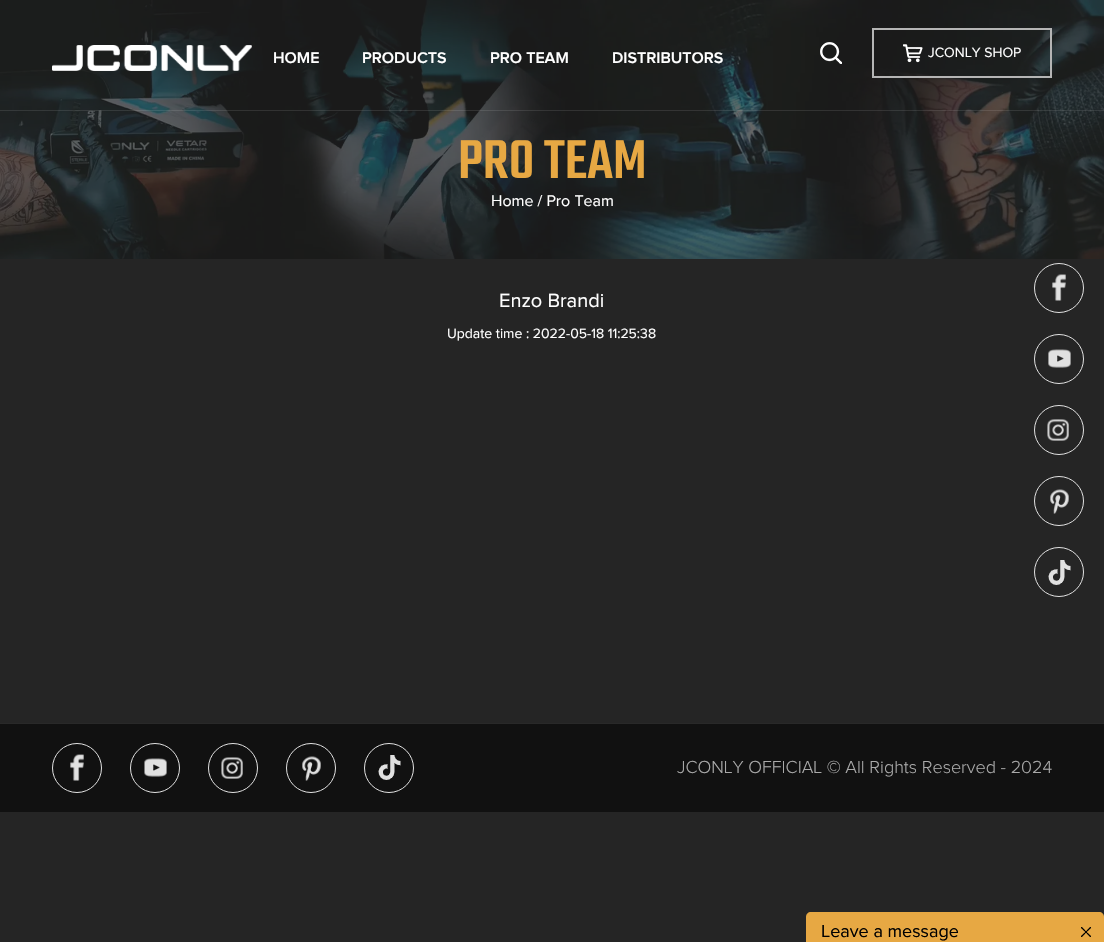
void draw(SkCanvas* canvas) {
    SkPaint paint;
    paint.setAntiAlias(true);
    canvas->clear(0xFF252525);
    canvas->drawImageRect(SkImages::DeferredFromEncodedData(SkData::MakeFromFileName("img4.png")), SkRect::MakeXYWH(0, 0, 1104, 259), SkSamplingOptions());
    paint.setColor(0x1AFFFFFF);
    canvas->drawRect(SkRect::MakeXYWH(0, 110, 1104, 1), paint);
    canvas->drawImageRect(SkImages::DeferredFromEncodedData(SkData::MakeFromFileName("img1.png")), SkRect::MakeXYWH(52, 45, 200, 26), SkSamplingOptions());
    SkFont font1(fontMgr->matchFamilyStyle("Proxima Nova", SkFontStyle(600, SkFontStyle::kNormal_Width, SkFontStyle::kUpright_Slant)), 16);
    font1.setSubpixel(true);
    paint.setColor(0xFFFFFFFF);
    canvas->drawString("HOME", 273, 63, font1, paint);
    canvas->drawString("PRODUCTS", 362, 63, font1, paint);
    canvas->drawString("PRO TEAM", 490, 63, font1, paint);
    canvas->drawString("DISTRIBUTORS", 612, 63, font1, paint);
    canvas->drawImageRect(SkImages::DeferredFromEncodedData(SkData::MakeFromFileName("img2.png")), SkRect::MakeXYWH(820, 42, 22, 22), SkSamplingOptions());
    paint.setStyle(SkPaint::kStroke_Style);
    paint.setStrokeWidth(2);
    paint.setColor(0xFFB5B5B5);
    canvas->drawRect(SkRect::MakeXYWH(873, 29, 178, 48), paint);
    canvas->drawImageRect(SkImages::DeferredFromEncodedData(SkData::MakeFromFileName("img3.png")), SkRect::MakeXYWH(903, 44, 20, 19), SkSamplingOptions());
    SkFont font2(fontMgr->matchFamilyStyle("Proxima Nova", SkFontStyle::Normal()), 14);
    font2.setSubpixel(true);
    paint.setStyle(SkPaint::kFill_Style);
    paint.setColor(0xFFFFFFFF);
    canvas->drawString("JCONLY SHOP", 928, 57, font2, paint);
    SkFont font3(fontMgr->matchFamilyStyle("Teko", SkFontStyle(500, SkFontStyle::kNormal_Width, SkFontStyle::kUpright_Slant)), 60);
    font3.setSubpixel(true);
    paint.setColor(0xFFE7A843);
    canvas->drawString("PRO TEAM", 458, 178, font3, paint);
    SkFont font4(fontMgr->matchFamilyStyle("Proxima Nova", SkFontStyle::Normal()), 16);
    font4.setSubpixel(true);
    paint.setColor(0xFFFFFFFF);
    canvas->drawString("Home / Pro Team", 491, 206, font4, paint);
    SkFont font5(fontMgr->matchFamilyStyle("Proxima Nova", SkFontStyle::Normal()), 20);
    font5.setSubpixel(true);
    canvas->drawString("Enzo Brandi", 499, 307, font5, paint);
    canvas->drawString("Update time : 2022-05-18 11:25:38", 447, 338, font2, paint);
    canvas->drawImageRect(SkImages::DeferredFromEncodedData(SkData::MakeFromFileName("img5.png")), SkRect::MakeXYWH(1052, 274, 14, 27), SkSamplingOptions());
    paint.setStyle(SkPaint::kStroke_Style);
    paint.setStrokeWidth(1);
    paint.setColor(0xFFE1E1E1);
    canvas->drawCircle(1059, 288, 24.5f, paint);
    canvas->drawImageRect(SkImages::DeferredFromEncodedData(SkData::MakeFromFileName("img6.png")), SkRect::MakeXYWH(1048, 349, 23, 19), SkSamplingOptions());
    canvas->drawCircle(1059, 359, 24.5f, paint);
    canvas->drawImageRect(SkImages::DeferredFromEncodedData(SkData::MakeFromFileName("img7.png")), SkRect::MakeXYWH(1047, 419, 22, 22), SkSamplingOptions());
    canvas->drawCircle(1059, 430, 24.5f, paint);
    canvas->drawImageRect(SkImages::DeferredFromEncodedData(SkData::MakeFromFileName("img8.png")), SkRect::MakeXYWH(1050, 489, 19, 25), SkSamplingOptions());
    canvas->drawCircle(1059, 501, 24.5f, paint);
    canvas->drawImageRect(SkImages::DeferredFromEncodedData(SkData::MakeFromFileName("img9.png")), SkRect::MakeXYWH(1048, 560, 23, 25), SkSamplingOptions());
    canvas->drawCircle(1059, 572, 24.5f, paint);
    paint.setStyle(SkPaint::kFill_Style);
    paint.setColor(0xFF111111);
    canvas->drawRect(SkRect::MakeXYWH(0, 724, 1104, 88), paint);
    paint.setColor(0xFF292929);
    canvas->drawRect(SkRect::MakeXYWH(0, 723, 1104, 1), paint);
    canvas->drawImageRect(SkImages::DeferredFromEncodedData(SkData::MakeFromFileName("img10.png")), SkRect::MakeXYWH(70, 754, 14, 27), SkSamplingOptions());
    paint.setStyle(SkPaint::kStroke_Style);
    paint.setColor(0xFFE1E1E1);
    canvas->drawCircle(77, 768, 24.5f, paint);
    canvas->drawImageRect(SkImages::DeferredFromEncodedData(SkData::MakeFromFileName("img11.png")), SkRect::MakeXYWH(144, 758, 23, 19), SkSamplingOptions());
    canvas->drawCircle(155, 768, 24.5f, paint);
    canvas->drawImageRect(SkImages::DeferredFromEncodedData(SkData::MakeFromFileName("img12.png")), SkRect::MakeXYWH(221, 757, 22, 22), SkSamplingOptions());
    canvas->drawCircle(233, 768, 24.5f, paint);
    canvas->drawImageRect(SkImages::DeferredFromEncodedData(SkData::MakeFromFileName("img13.png")), SkRect::MakeXYWH(302, 756, 19, 25), SkSamplingOptions());
    canvas->drawCircle(311, 768, 24.5f, paint);
    canvas->drawImageRect(SkImages::DeferredFromEncodedData(SkData::MakeFromFileName("img14.png")), SkRect::MakeXYWH(378, 755, 23, 25), SkSamplingOptions());
    canvas->drawCircle(389, 768, 24.5f, paint);
    SkFont font6(fontMgr->matchFamilyStyle("Proxima Nova", SkFontStyle(300, SkFontStyle::kNormal_Width, SkFontStyle::kUpright_Slant)), 18);
    font6.setSubpixel(true);
    paint.setStyle(SkPaint::kFill_Style);
    paint.setColor(0xFFAAAAAA);
    canvas->drawString("JCONLY OFFICIAL © All Rights Reserved - 2024", 677, 773, font6, paint);
    paint.setColor(0xFFE7A843);
    canvas->drawPath(SkPathBuilder().moveTo(811, 912).lineTo(1099, 912).cubicTo(1102, 912, 1104, 914, 1104, 917).lineTo(1104, 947).lineTo(806, 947).lineTo(806, 917).cubicTo(806, 914, 808, 912, 811, 912).close().detach(), paint);
    SkFont font7(fontMgr->matchFamilyStyle("Proxima Nova", SkFontStyle::Normal()), 18);
    font7.setSubpixel(true);
    paint.setColor(0xFF010101);
    canvas->drawString("Leave a message", 821, 937, font7, paint);
    canvas->drawImageRect(SkImages::DeferredFromEncodedData(SkData::MakeFromFileName("img15.png")), SkRect::MakeXYWH(1081, 927, 10, 10), SkSamplingOptions());
}
